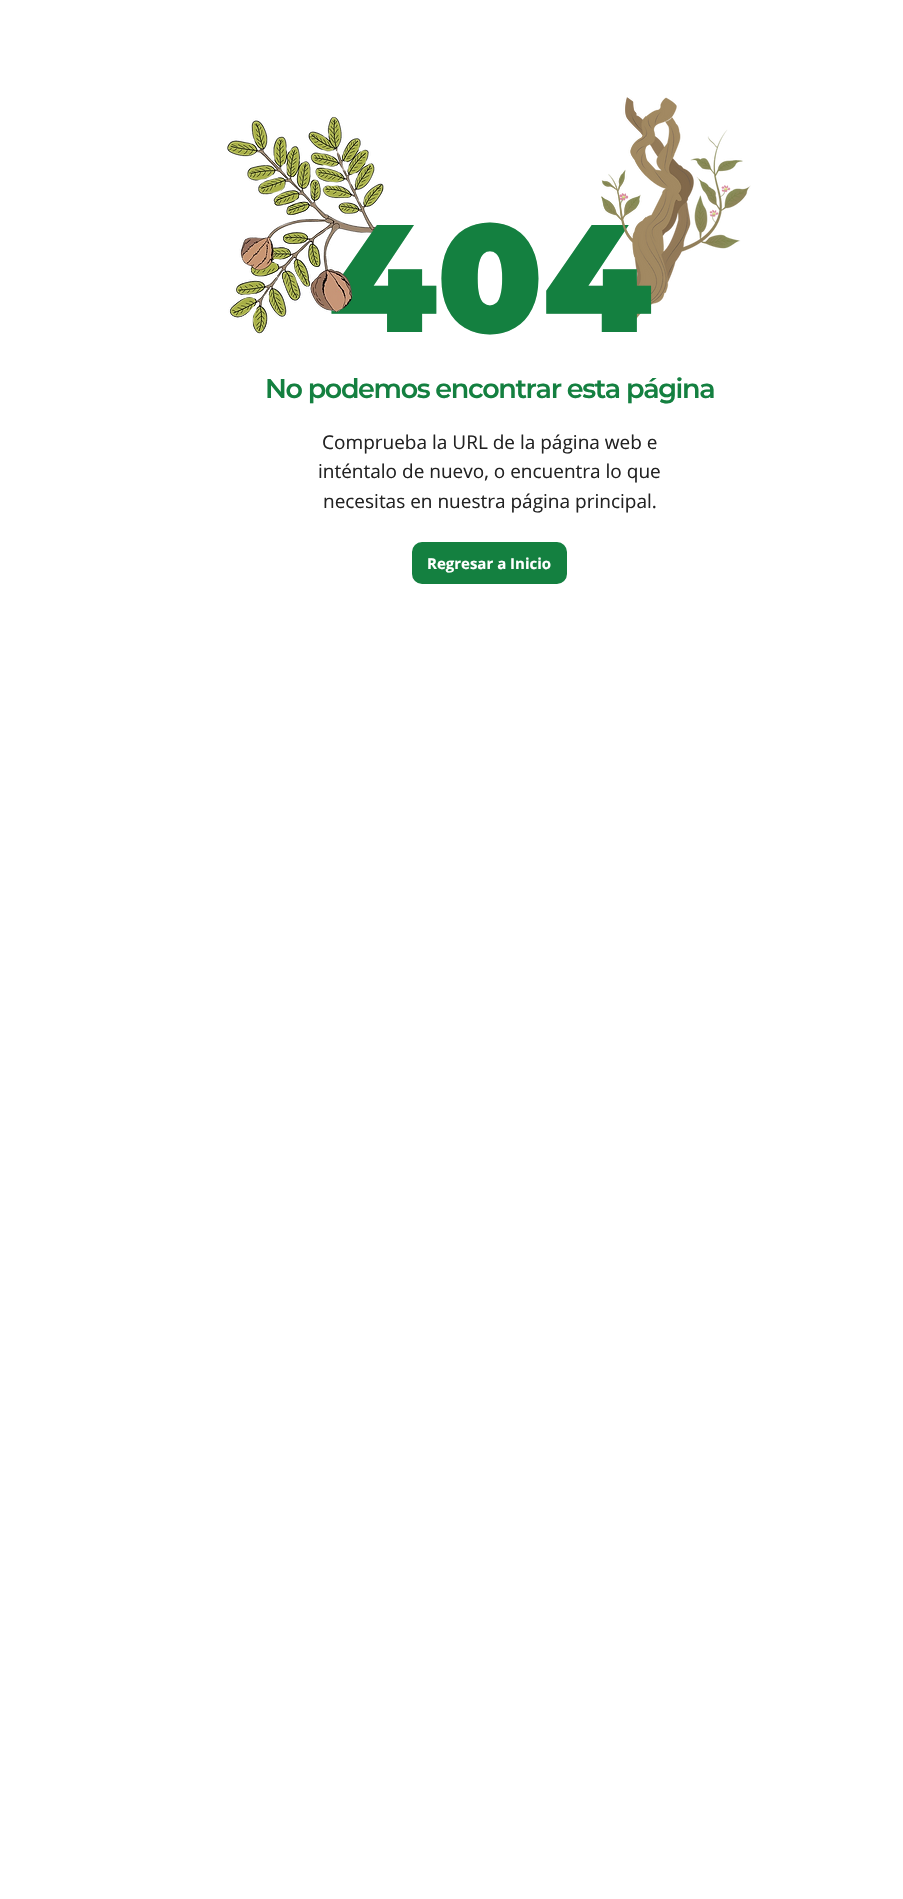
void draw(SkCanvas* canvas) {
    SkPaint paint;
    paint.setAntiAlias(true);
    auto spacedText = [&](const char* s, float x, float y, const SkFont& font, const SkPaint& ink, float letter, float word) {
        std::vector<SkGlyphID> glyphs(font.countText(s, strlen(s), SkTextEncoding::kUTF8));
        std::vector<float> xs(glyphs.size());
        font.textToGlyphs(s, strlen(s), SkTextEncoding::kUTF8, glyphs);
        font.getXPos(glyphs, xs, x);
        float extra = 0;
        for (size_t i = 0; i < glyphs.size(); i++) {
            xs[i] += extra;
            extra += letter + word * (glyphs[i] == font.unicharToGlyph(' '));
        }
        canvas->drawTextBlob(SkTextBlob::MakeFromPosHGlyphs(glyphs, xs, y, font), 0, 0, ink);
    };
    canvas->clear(0xFFFFFFFF);
    canvas->drawImageRect(SkImages::DeferredFromEncodedData(SkData::MakeFromFileName("img1.png")), SkRect::MakeXYWH(601, 97, 150, 235), SkSamplingOptions());
    canvas->drawImageRect(SkImages::DeferredFromEncodedData(SkData::MakeFromFileName("img2.png")), SkRect::MakeXYWH(227, 116, 158, 217), SkSamplingOptions());
    SkFont font1(fontMgr->matchFamilyStyle("Montserrat", SkFontStyle(900, SkFontStyle::kNormal_Width, SkFontStyle::kUpright_Slant)), 153);
    font1.setSubpixel(true);
    paint.setColor(0xFF148040);
    canvas->drawString("404", 328, 332, font1, paint);
    canvas->drawImageRect(SkImages::DeferredFromEncodedData(SkData::MakeFromFileName("img3.png")), SkRect::MakeXYWH(601, 97, 45, 160), SkSamplingOptions());
    canvas->drawImageRect(SkImages::DeferredFromEncodedData(SkData::MakeFromFileName("img4.png")), SkRect::MakeXYWH(229, 239, 124, 95), SkSamplingOptions());
    SkFont font2(fontMgr->matchFamilyStyle("Montserrat", SkFontStyle(600, SkFontStyle::kNormal_Width, SkFontStyle::kUpright_Slant)), 27);
    font2.setSubpixel(true);
    spacedText("No podemos encontrar esta página", 265, 398, font2, paint, -1.35f, 0);
    SkFont font3(fontMgr->matchFamilyStyle("Open Sans", SkFontStyle::Normal()), 19);
    font3.setSubpixel(true);
    paint.setColor(0xFF222222);
    canvas->drawString("Comprueba la URL de la página web e", 322, 449, font3, paint);
    canvas->drawString("inténtalo de nuevo, o encuentra lo que", 318, 478, font3, paint);
    canvas->drawString("necesitas en nuestra página principal.", 323, 508, font3, paint);
    paint.setColor(0xFF148040);
    canvas->drawRoundRect(SkRect::MakeXYWH(413, 543, 153, 40), 9, 9, paint);
    paint.setStyle(SkPaint::kStroke_Style);
    paint.setStrokeWidth(2);
    canvas->drawRoundRect(SkRect::MakeXYWH(413, 543, 153, 40), 9, 9, paint);
    SkFont font4(fontMgr->matchFamilyStyle("Open Sans", SkFontStyle::Bold()), 15);
    font4.setSubpixel(true);
    paint.setStyle(SkPaint::kFill_Style);
    paint.setColor(0xFFFFFFFF);
    canvas->drawString("Regresar a Inicio", 427, 569, font4, paint);
}
